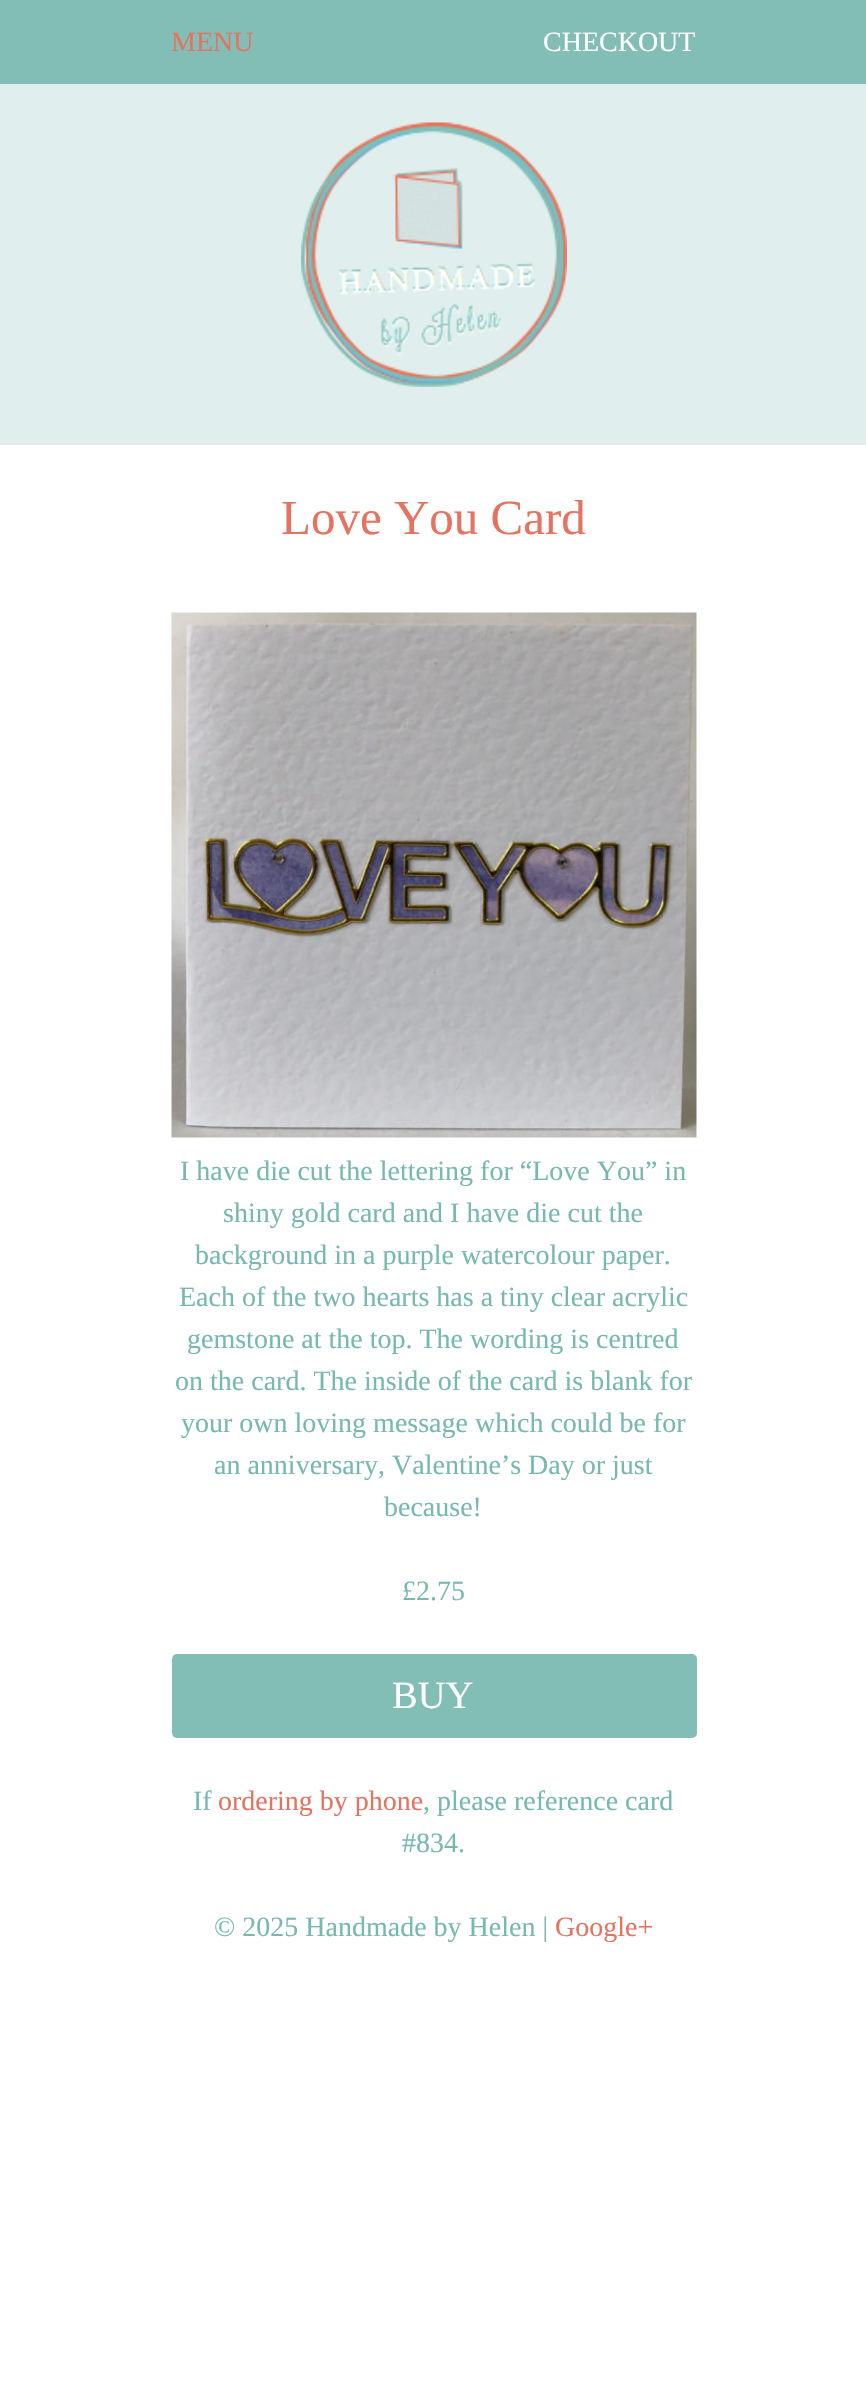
void draw(SkCanvas* canvas) {
    SkPaint paint;
    paint.setAntiAlias(true);
    canvas->clear(0xFFFFFFFF);
    paint.setColor(0xFF82BEB6);
    canvas->drawRect(SkRect::MakeXYWH(0, 0, 866, 84), paint);
    SkFont font1(fontMgr->matchFamilyStyle("Liberation Serif", SkFontStyle::Normal()), 28);
    font1.setSubpixel(true);
    paint.setColor(0xFFE47361);
    canvas->drawString("MENU", 171, 51, font1, paint);
    paint.setColor(0xFFFFFFFF);
    canvas->drawString("CHECKOUT", 543, 51, font1, paint);
    paint.setColor(0xFFE0EFED);
    canvas->drawRect(SkRect::MakeXYWH(0, 84, 866, 361), paint);
    canvas->drawImageRect(SkImages::DeferredFromEncodedData(SkData::MakeFromFileName("img1.png")), SkRect::MakeXYWH(301, 122, 266, 265), SkSamplingOptions());
    SkFont font2(fontMgr->matchFamilyStyle("Liberation Serif", SkFontStyle::Normal()), 49);
    font2.setSubpixel(true);
    paint.setColor(0xFFE47361);
    canvas->drawString("Love You Card", 281, 534, font2, paint);
    canvas->drawImageRect(SkImages::DeferredFromEncodedData(SkData::MakeFromFileName("img2.png")), SkRect::MakeXYWH(171, 612, 526, 526), SkSamplingOptions());
    paint.setColor(0xFF77B9B0);
    canvas->drawString("I have die cut the lettering for “Love You” in", 180, 1180, font1, paint);
    canvas->drawString("shiny gold card and I have die cut the", 223, 1222, font1, paint);
    canvas->drawString("background in a purple watercolour paper.", 195, 1264, font1, paint);
    canvas->drawString("Each of the two hearts has a tiny clear acrylic", 179, 1306, font1, paint);
    canvas->drawString("gemstone at the top. The wording is centred", 187, 1348, font1, paint);
    canvas->drawString("on the card. The inside of the card is blank for", 175, 1390, font1, paint);
    canvas->drawString("your own loving message which could be for", 181, 1432, font1, paint);
    canvas->drawString("an anniversary, Valentine’s Day or just", 214, 1474, font1, paint);
    canvas->drawString("because!", 384, 1516, font1, paint);
    canvas->drawString("£2.75", 402, 1600, font1, paint);
    paint.setColor(0xFF82BEB6);
    canvas->drawRoundRect(SkRect::MakeXYWH(172, 1654, 525, 84), 5, 5, paint);
    SkFont font3(fontMgr->matchFamilyStyle("Liberation Serif", SkFontStyle::Normal()), 38.5f);
    font3.setSubpixel(true);
    paint.setColor(0xFFFFFFFF);
    canvas->drawString("BUY", 392, 1708, font3, paint);
    paint.setColor(0xFF77B9B0);
    canvas->drawString("If", 193, 1810, font1, paint);
    paint.setColor(0xFFE47361);
    canvas->drawString("ordering by phone", 218, 1810, font1, paint);
    paint.setColor(0xFF77B9B0);
    canvas->drawString(", please reference card", 423, 1810, font1, paint);
    canvas->drawString("#834.", 402, 1852, font1, paint);
    canvas->drawString("© 2025 Handmade by Helen |", 214, 1936, font1, paint);
    paint.setColor(0xFFE47361);
    canvas->drawString("Google+", 555, 1936, font1, paint);
}
